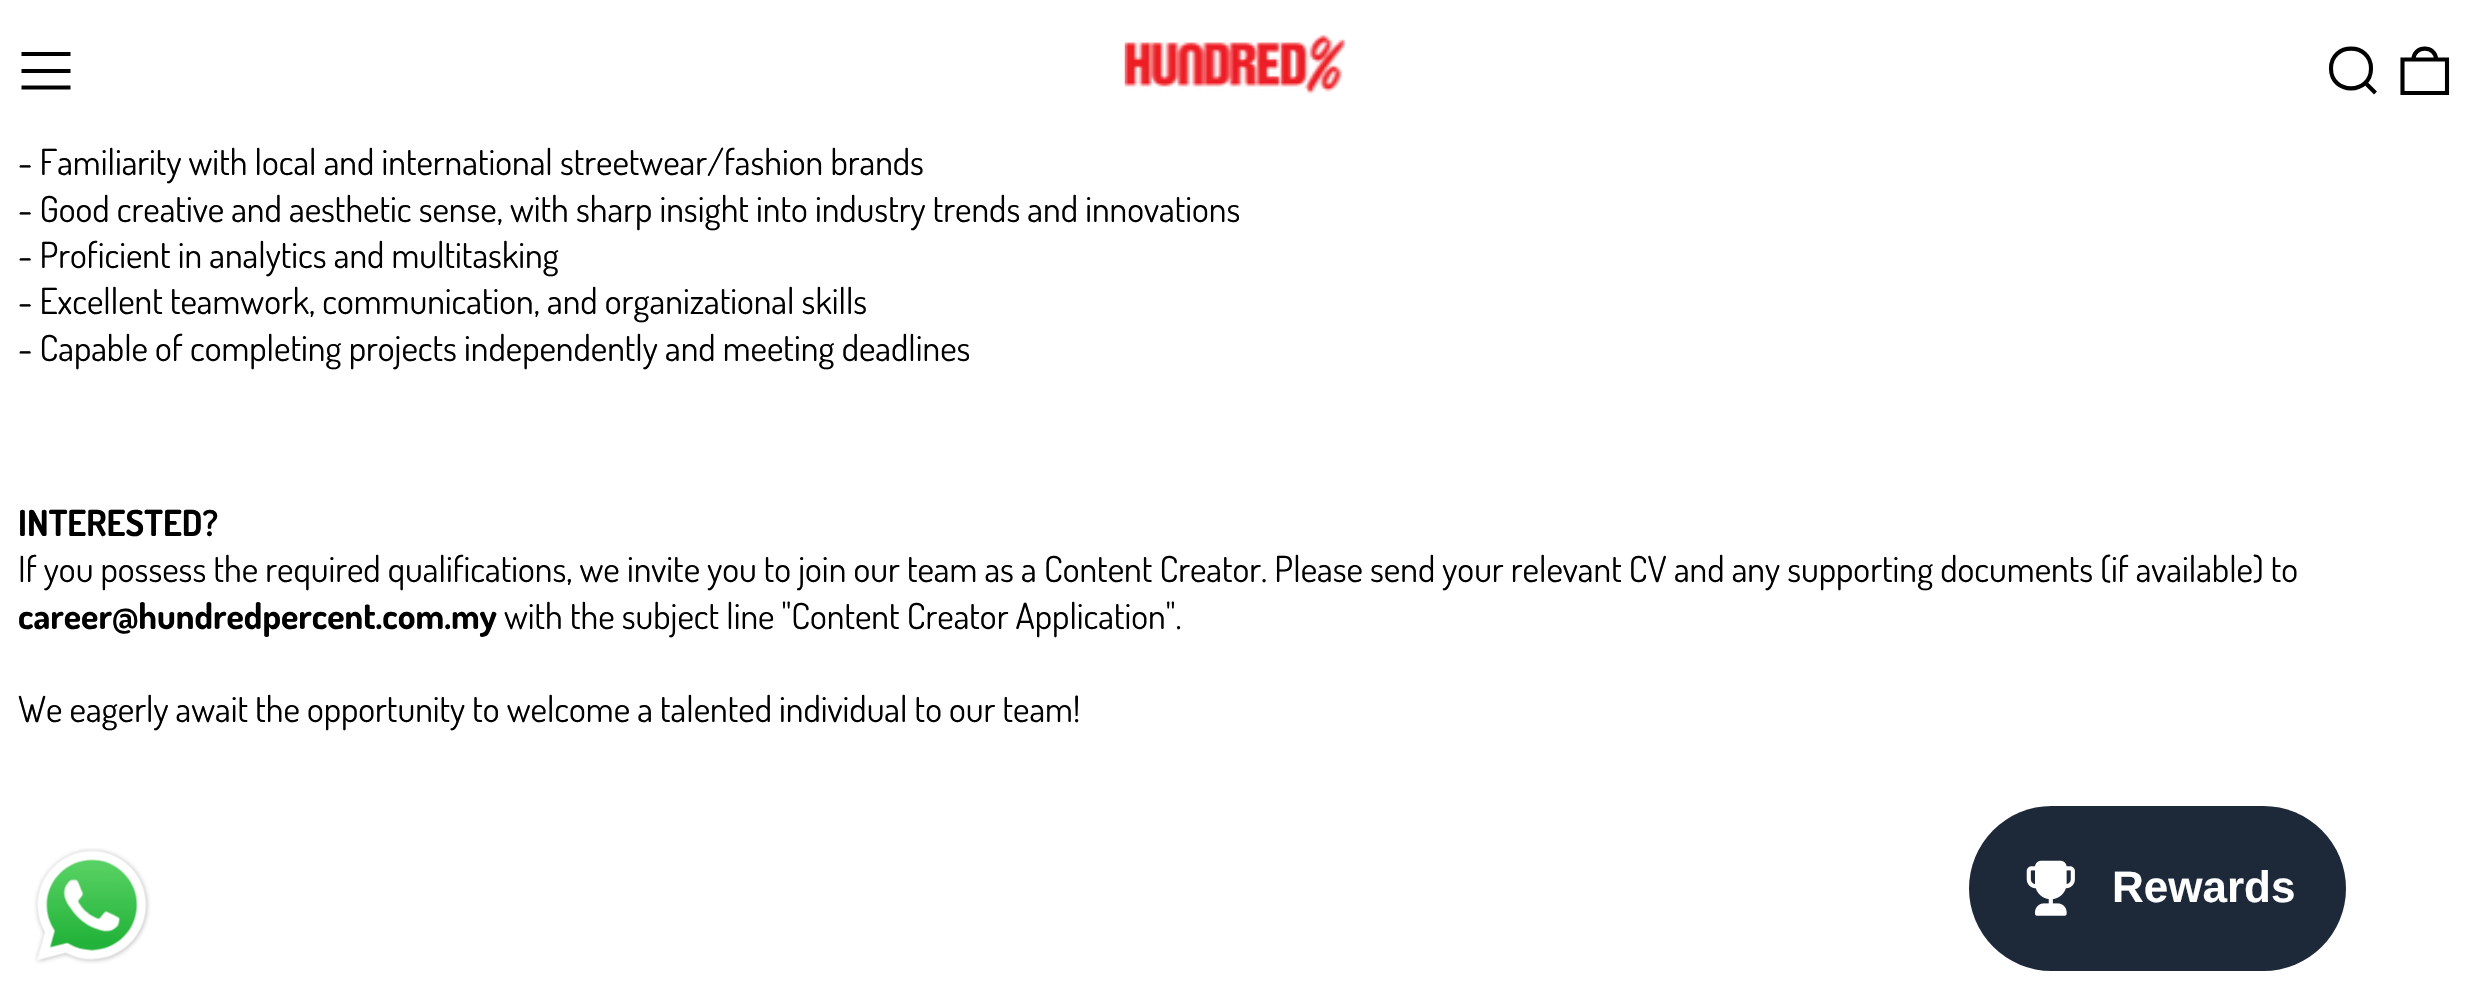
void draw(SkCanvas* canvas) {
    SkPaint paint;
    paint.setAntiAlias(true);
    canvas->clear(0xFFFFFFFF);
    paint.setStyle(SkPaint::kStroke_Style);
    paint.setStrokeWidth(4.1f);
    paint.setColor(0xFF000000);
    canvas->drawPath(SkPathBuilder().moveTo(21.5f, 54).lineTo(70.5f, 54).moveTo(21.5f, 71).lineTo(70.5f, 71).moveTo(21.5f, 87.5f).lineTo(70.5f, 87.5f).detach(), paint);
    canvas->drawImageRect(SkImages::DeferredFromEncodedData(SkData::MakeFromFileName("img1.png")), SkRect::MakeXYWH(1124, 35, 221, 59), SkSamplingOptions());
    canvas->drawPath(SkPathBuilder().moveTo(2331, 68.5f).cubicTo(2331, 95, 2371, 95, 2371, 68.5f).cubicTo(2371, 42, 2331, 42, 2331, 68.5f).close().moveTo(2365.5f, 83).lineTo(2375.5f, 93).detach(), paint);
    canvas->drawPath(SkPathBuilder().moveTo(2402.5f, 59.5f).lineTo(2447, 59.5f).lineTo(2447, 93).lineTo(2402.5f, 93).close().moveTo(2436, 59.5f).cubicTo(2436, 45, 2413.5f, 45, 2413.5f, 59.5f).detach(), paint);
    SkFont font1(fontMgr->matchFamilyStyle("Dosis", SkFontStyle::Normal()), 35.75f);
    font1.setSubpixel(true);
    paint.setStyle(SkPaint::kFill_Style);
    canvas->drawString("- Familiarity with local and international streetwear/fashion brands", 18, 175, font1, paint);
    canvas->drawString("- Good creative and aesthetic sense, with sharp insight into industry trends and innovations", 18, 222, font1, paint);
    canvas->drawString("- Proficient in analytics and multitasking", 18, 268, font1, paint);
    canvas->drawString("- Excellent teamwork, communication, and organizational skills", 18, 314, font1, paint);
    canvas->drawString("- Capable of completing projects independently and meeting deadlines", 18, 361, font1, paint);
    SkFont font2(fontMgr->matchFamilyStyle("Dosis", SkFontStyle::Bold()), 35.75f);
    font2.setSubpixel(true);
    canvas->drawString("INTERESTED?", 18, 536, font2, paint);
    canvas->drawString("If you possess the required qualifications, we invite you to join our team as a Content Creator. Please send your relevant CV and any supporting documents (if available) to", 18, 582, font1, paint);
    canvas->drawString("career@hundredpercent.com.my", 18, 629, font2, paint);
    canvas->drawString("with the subject line \"Content Creator Application\".", 504, 629, font1, paint);
    canvas->drawString("We eagerly await the opportunity to welcome a talented individual to our team!", 18, 722, font1, paint);
    canvas->drawImageRect(SkImages::DeferredFromEncodedData(SkData::MakeFromFileName("img2.png")), SkRect::MakeXYWH(34, 848, 117, 116), SkSamplingOptions());
    paint.setColor(0xFF1D2939);
    canvas->drawRoundRect(SkRect::MakeXYWH(1969, 806, 377, 165), 82.5f, 82.5f, paint);
    canvas->drawImageRect(SkImages::DeferredFromEncodedData(SkData::MakeFromFileName("img3.png")), SkRect::MakeXYWH(2026, 860, 49, 56), SkSamplingOptions());
    SkFont font3(fontMgr->matchFamilyStyle("Liberation Sans", SkFontStyle::Bold()), 44);
    font3.setSubpixel(true);
    paint.setColor(0xFFFFFFFF);
    canvas->drawString("Rewards", 2112, 902, font3, paint);
}
